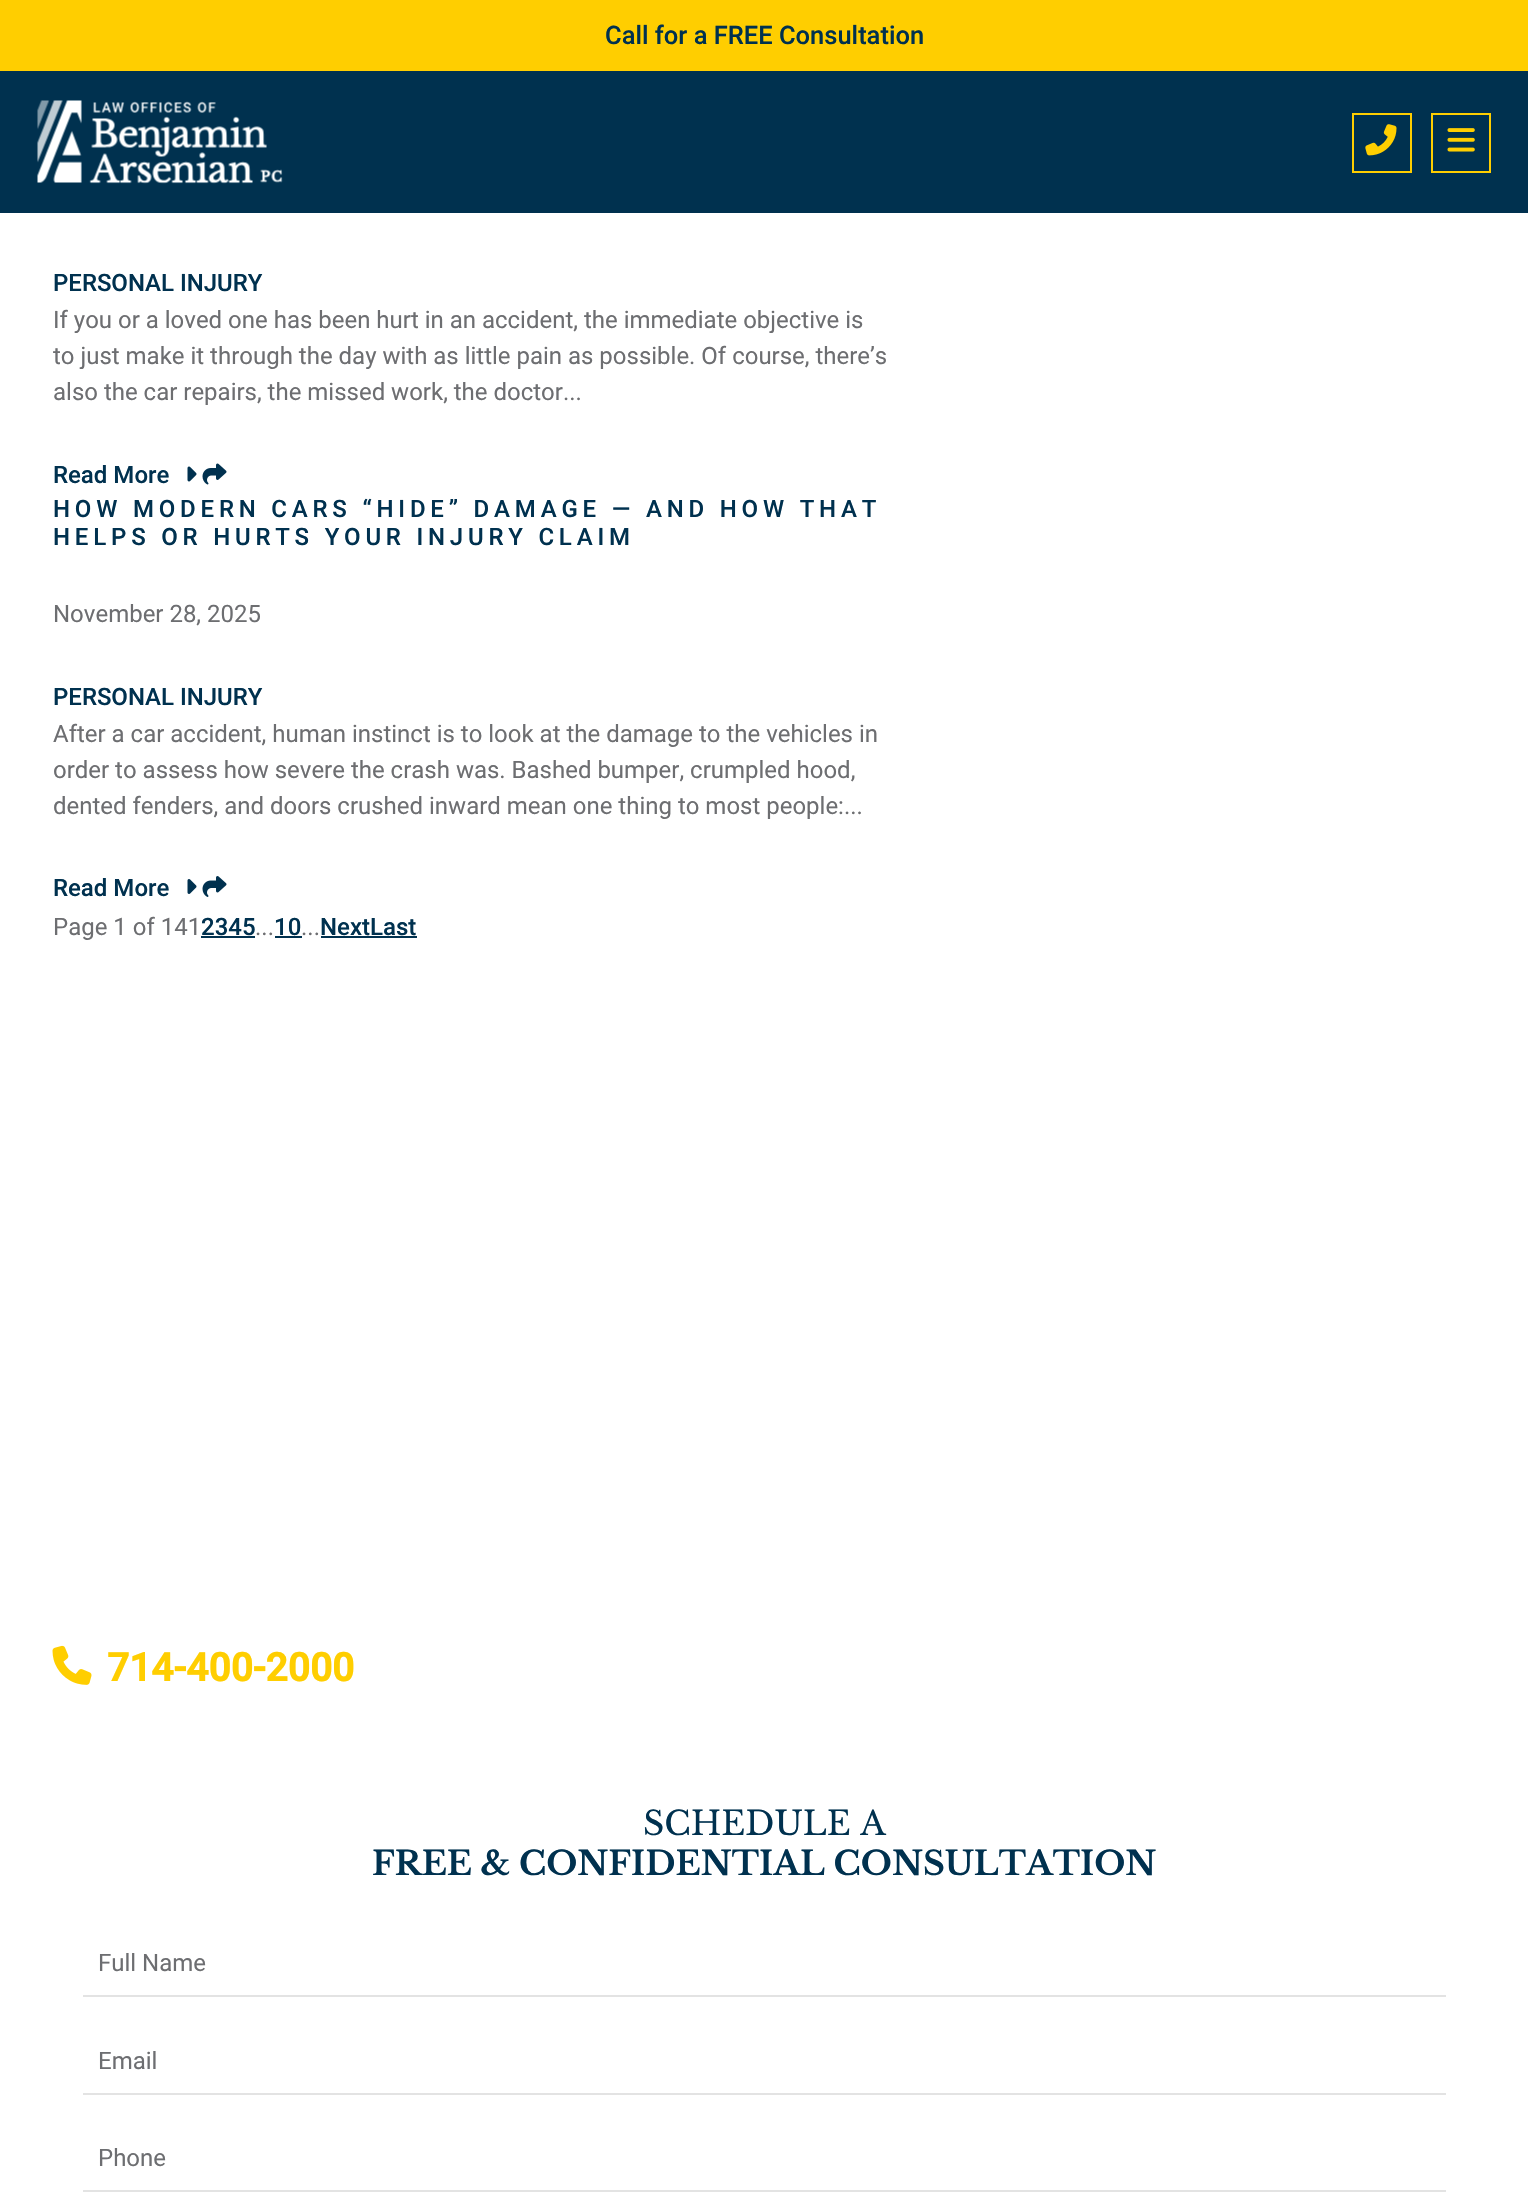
void draw(SkCanvas* canvas) {
    SkPaint paint;
    paint.setAntiAlias(true);
    auto spacedText = [&](const char* s, float x, float y, const SkFont& font, const SkPaint& ink, float letter, float word) {
        std::vector<SkGlyphID> glyphs(font.countText(s, strlen(s), SkTextEncoding::kUTF8));
        std::vector<float> xs(glyphs.size());
        font.textToGlyphs(s, strlen(s), SkTextEncoding::kUTF8, glyphs);
        font.getXPos(glyphs, xs, x);
        float extra = 0;
        for (size_t i = 0; i < glyphs.size(); i++) {
            xs[i] += extra;
            extra += letter + word * (glyphs[i] == font.unicharToGlyph(' '));
        }
        canvas->drawTextBlob(SkTextBlob::MakeFromPosHGlyphs(glyphs, xs, y, font), 0, 0, ink);
    };
    canvas->clear(0xFFFFFFFF);
    paint.setColor(0xFF00314F);
    canvas->drawRect(SkRect::MakeXYWH(0, 71, 1528, 142), paint);
    paint.setColor(0xFFFFCE00);
    canvas->drawRect(SkRect::MakeXYWH(0, 0, 1528, 71), paint);
    SkFont font1(fontMgr->matchFamilyStyle("Roboto", SkFontStyle(500, SkFontStyle::kNormal_Width, SkFontStyle::kUpright_Slant)), 25.5f);
    font1.setSubpixel(true);
    paint.setColor(0xFF00314F);
    canvas->drawString("Call for a FREE Consultation", 605, 44, font1, paint);
    canvas->drawImageRect(SkImages::DeferredFromEncodedData(SkData::MakeFromFileName("img1.png")), SkRect::MakeXYWH(37, 100, 246, 84), SkSamplingOptions());
    paint.setStyle(SkPaint::kStroke_Style);
    paint.setStrokeWidth(2);
    paint.setColor(0xFFFFCE00);
    canvas->drawRect(SkRect::MakeXYWH(1353, 114, 58, 58), paint);
    canvas->drawImageRect(SkImages::DeferredFromEncodedData(SkData::MakeFromFileName("img2.png")), SkRect::MakeXYWH(1365, 124, 32, 32), SkSamplingOptions());
    canvas->drawRect(SkRect::MakeXYWH(1432, 114, 58, 58), paint);
    canvas->drawImageRect(SkImages::DeferredFromEncodedData(SkData::MakeFromFileName("img3.png")), SkRect::MakeXYWH(1447, 128, 28, 24), SkSamplingOptions());
    SkFont font2(fontMgr->matchFamilyStyle("Roboto", SkFontStyle(500, SkFontStyle::kNormal_Width, SkFontStyle::kUpright_Slant)), 24);
    font2.setSubpixel(true);
    paint.setStyle(SkPaint::kFill_Style);
    paint.setColor(0xFF00314F);
    canvas->drawString("PERSONAL INJURY", 53, 291, font2, paint);
    SkFont font3(fontMgr->matchFamilyStyle("Roboto", SkFontStyle::Normal()), 24);
    font3.setSubpixel(true);
    paint.setColor(0xFF6D6E71);
    canvas->drawString("If you or a loved one has been hurt in an accident, the immediate objective is", 53, 328, font3, paint);
    canvas->drawString("to just make it through the day with as little pain as possible. Of course, there’s", 53, 364, font3, paint);
    canvas->drawString("also the car repairs, the missed work, the doctor...", 53, 400, font3, paint);
    paint.setColor(0xFF00314F);
    canvas->drawString("Read More", 53, 483, font2, paint);
    canvas->drawImageRect(SkImages::DeferredFromEncodedData(SkData::MakeFromFileName("img4.png")), SkRect::MakeXYWH(187, 466, 10, 16), SkSamplingOptions());
    canvas->drawImageRect(SkImages::DeferredFromEncodedData(SkData::MakeFromFileName("img5.png")), SkRect::MakeXYWH(202, 463, 25, 22), SkSamplingOptions());
    spacedText("HOW MODERN CARS “HIDE” DAMAGE — AND HOW THAT", 53, 517, font2, paint, 4.8f, 0);
    spacedText("HELPS OR HURTS YOUR INJURY CLAIM", 53, 545, font2, paint, 4.8f, 0);
    paint.setColor(0xFF6D6E71);
    canvas->drawString("November 28, 2025", 53, 622, font3, paint);
    paint.setColor(0xFF00314F);
    canvas->drawString("PERSONAL INJURY", 53, 705, font2, paint);
    paint.setColor(0xFF6D6E71);
    canvas->drawString("After a car accident, human instinct is to look at the damage to the vehicles in", 53, 742, font3, paint);
    canvas->drawString("order to assess how severe the crash was. Bashed bumper, crumpled hood,", 53, 778, font3, paint);
    canvas->drawString("dented fenders, and doors crushed inward mean one thing to most people:...", 53, 814, font3, paint);
    paint.setColor(0xFF00314F);
    canvas->drawString("Read More", 53, 896, font2, paint);
    canvas->drawImageRect(SkImages::DeferredFromEncodedData(SkData::MakeFromFileName("img6.png")), SkRect::MakeXYWH(187, 879, 10, 15), SkSamplingOptions());
    canvas->drawImageRect(SkImages::DeferredFromEncodedData(SkData::MakeFromFileName("img7.png")), SkRect::MakeXYWH(202, 876, 25, 21), SkSamplingOptions());
    paint.setColor(0xFF6D6E71);
    canvas->drawString("Page 1 of 141", 53, 935, font3, paint);
    paint.setColor(0xFF00314F);
    canvas->drawString("2345", 201, 935, font2, paint);
    canvas->drawRect(SkRect::MakeXYWH(201, 936, 54, 2), paint);
    paint.setColor(0xFF6D6E71);
    canvas->drawString("...", 255, 935, font3, paint);
    paint.setColor(0xFF00314F);
    canvas->drawString("10", 274, 935, font2, paint);
    canvas->drawRect(SkRect::MakeXYWH(275, 936, 27, 2), paint);
    paint.setColor(0xFF6D6E71);
    canvas->drawString("...", 301, 935, font3, paint);
    paint.setColor(0xFF00314F);
    canvas->drawString("NextLast", 320, 935, font2, paint);
    canvas->drawRect(SkRect::MakeXYWH(321, 936, 96, 2), paint);
    canvas->drawImageRect(SkImages::DeferredFromEncodedData(SkData::MakeFromFileName("img8.png")), SkRect::MakeXYWH(52, 1645, 40, 40), SkSamplingOptions());
    SkFont font4(fontMgr->matchFamilyStyle("Roboto", SkFontStyle::Bold()), 39);
    font4.setSubpixel(true);
    paint.setColor(0xFFFFCE00);
    canvas->drawString("714-400-2000", 107, 1681, font4, paint);
    SkFont font5(fontMgr->matchFamilyStyle("Libre Baskerville", SkFontStyle::Normal()), 33);
    font5.setSubpixel(true);
    paint.setColor(0xFF00314F);
    canvas->drawString("SCHEDULE A", 643, 1835, font5, paint);
    SkFont font6(fontMgr->matchFamilyStyle("Libre Baskerville", SkFontStyle::Bold()), 33);
    font6.setSubpixel(true);
    canvas->drawString("FREE & CONFIDENTIAL CONSULTATION", 372, 1875, font6, paint);
    paint.setColor(0xFF6D6E71);
    canvas->drawString("Full Name", 98, 1971, font3, paint);
    paint.setColor(0xFFE3E3E3);
    canvas->drawRect(SkRect::MakeXYWH(83, 1995, 1363, 2), paint);
    paint.setColor(0xFF6D6E71);
    canvas->drawString("Email", 98, 2069, font3, paint);
    paint.setColor(0xFFE3E3E3);
    canvas->drawRect(SkRect::MakeXYWH(83, 2093, 1363, 2), paint);
    paint.setColor(0xFF6D6E71);
    canvas->drawString("Phone", 98, 2166, font3, paint);
    paint.setColor(0xFFE3E3E3);
    canvas->drawRect(SkRect::MakeXYWH(83, 2190, 1363, 2), paint);
}
